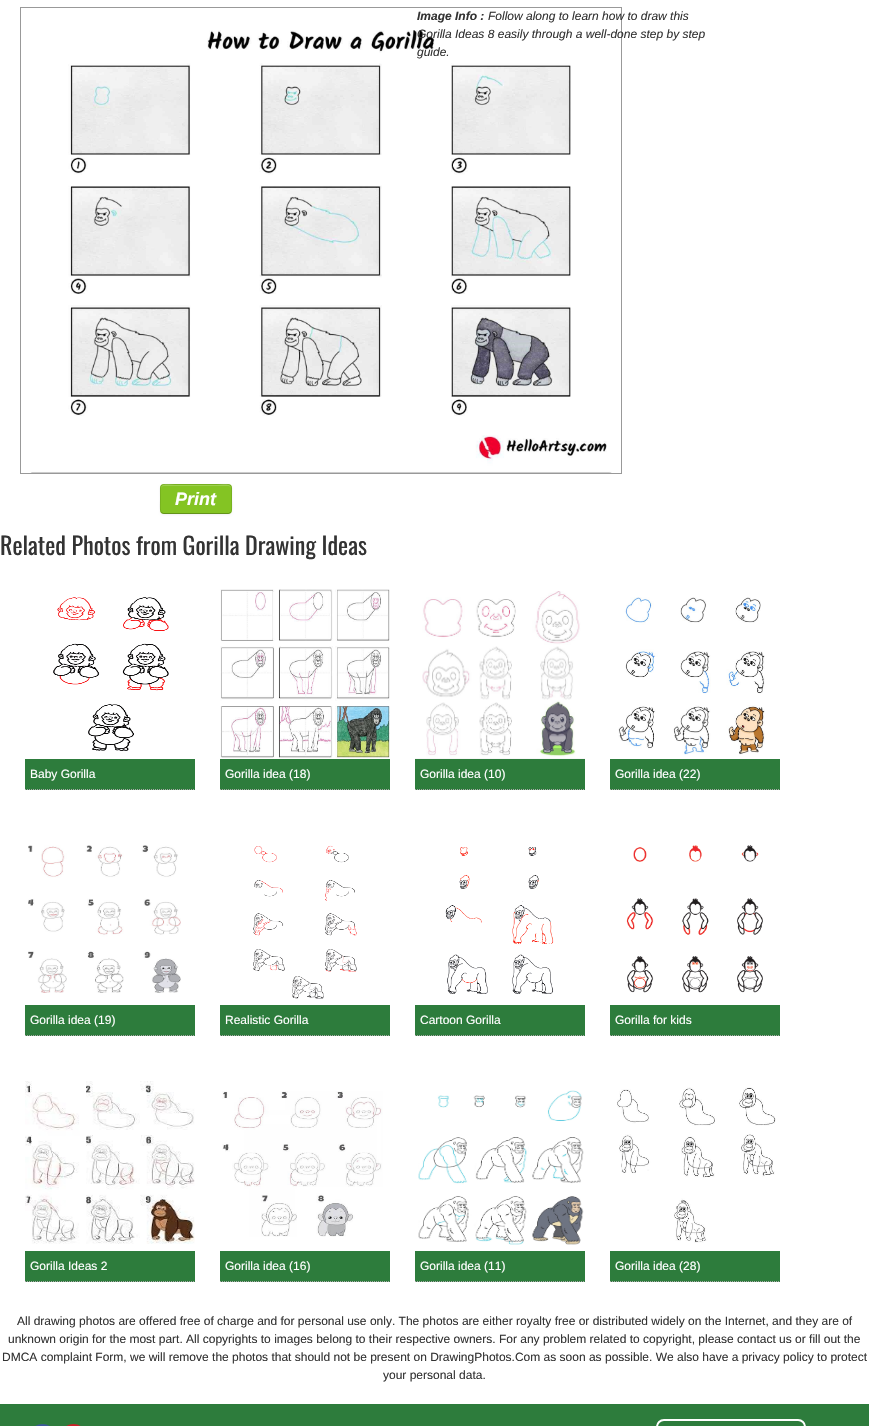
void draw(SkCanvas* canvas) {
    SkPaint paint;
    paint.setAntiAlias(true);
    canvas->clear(0xFFFFFFFF);
    paint.setStyle(SkPaint::kStroke_Style);
    paint.setStrokeWidth(1);
    paint.setColor(0xFF999999);
    canvas->drawRect(SkRect::MakeXYWH(20.5f, 7.5f, 601, 466), paint);
    canvas->drawImageRect(SkImages::DeferredFromEncodedData(SkData::MakeFromFileName("img1.png")), SkRect::MakeXYWH(30, 30, 582, 443), SkSamplingOptions());
    SkFont font1(fontMgr->matchFamilyStyle("Liberation Sans", SkFontStyle::BoldItalic()), 12);
    font1.setSubpixel(true);
    paint.setStyle(SkPaint::kFill_Style);
    paint.setColor(0xFF333333);
    canvas->drawString("Image Info :", 417, 20, font1, paint);
    SkFont font2(fontMgr->matchFamilyStyle("Liberation Sans", SkFontStyle::Italic()), 12);
    font2.setSubpixel(true);
    canvas->drawString("Follow along to learn how to draw this", 488, 20, font2, paint);
    canvas->drawString("Gorilla Ideas 8 easily through a well-done step by step", 417, 38, font2, paint);
    canvas->drawString("guide.", 417, 56, font2, paint);
    paint.setColor(0x0D000000);
    paint.setMaskFilter(SkMaskFilter::MakeBlur(kNormal_SkBlurStyle, 1));
    canvas->drawRoundRect(SkRect::MakeXYWH(160, 485, 72, 30), 4, 4, paint);
    paint.setMaskFilter(nullptr);
    paint.setColor(0xFF84C423);
    canvas->drawRoundRect(SkRect::MakeXYWH(160, 484, 72, 30), 4, 4, paint);
    paint.setColor(0xFF9DD04F);
    canvas->drawPath(SkPathBuilder().moveTo(164, 486).lineTo(228, 486).cubicTo(230, 486, 231, 487, 231, 489).cubicTo(231, 482, 222, 485, 217, 485).lineTo(175, 485).cubicTo(170, 485, 161, 482, 161, 489).cubicTo(161, 487, 162, 486, 164, 486).close().detach(), paint);
    paint.setStyle(SkPaint::kStroke_Style);
    paint.setColor(0x40000000);
    canvas->drawPath(SkPathBuilder().moveTo(230.5f, 512.5f).lineTo(228.5f, 513.5f).lineTo(163.5f, 513.5f).lineTo(161.5f, 512.5f).detach(), paint);
    paint.setColor(0x1A000000);
    canvas->drawPath(SkPathBuilder().moveTo(161.5f, 512.5f).cubicTo(159.5f, 510.5f, 160.5f, 502, 160.5f, 499).cubicTo(160.5f, 482.5f, 158, 484.5f, 174.5f, 484.5f).lineTo(217.5f, 484.5f).cubicTo(234, 484.5f, 231.5f, 482.5f, 231.5f, 499).cubicTo(231.5f, 502, 232.5f, 510.5f, 230.5f, 512.5f).detach(), paint);
    SkFont font3(fontMgr->matchFamilyStyle("Liberation Sans", SkFontStyle::BoldItalic()), 18);
    font3.setSubpixel(true);
    paint.setStyle(SkPaint::kFill_Style);
    paint.setColor(0xFFFFFFFF);
    canvas->drawString("Print", 175, 505, font3, paint);
    SkFont font4(fontMgr->matchFamilyStyle("Oswald", SkFontStyle::Normal()), 24);
    font4.setSubpixel(true);
    paint.setColor(0xFF333333);
    canvas->drawString("Related Photos from Gorilla Drawing Ideas", 0, 555, font4, paint);
    canvas->drawImageRect(SkImages::DeferredFromEncodedData(SkData::MakeFromFileName("img2.png")), SkRect::MakeXYWH(53, 597, 116, 154), SkSamplingOptions());
    paint.setColor(0xFF2D7C3C);
    canvas->drawRect(SkRect::MakeXYWH(25, 759, 170, 31), paint);
    paint.setStyle(SkPaint::kStroke_Style);
    paint.setColor(0xFFA9A9A9);
    paint.setPathEffect(SkDashPathEffect::Make({{1, 1}}, 0));
    canvas->drawPath(SkPathBuilder().moveTo(25, 789.5f).lineTo(195, 789.5f).detach(), paint);
    paint.setPathEffect(nullptr);
    SkFont font5(fontMgr->matchFamilyStyle("Liberation Sans", SkFontStyle::Normal()), 12);
    font5.setSubpixel(true);
    paint.setStyle(SkPaint::kFill_Style);
    paint.setColor(0xFFFFFFFF);
    canvas->drawString("Baby Gorilla", 30, 778, font5, paint);
    canvas->drawImageRect(SkImages::DeferredFromEncodedData(SkData::MakeFromFileName("img3.png")), SkRect::MakeXYWH(220, 589, 170, 169), SkSamplingOptions());
    paint.setColor(0xFF2D7C3C);
    canvas->drawRect(SkRect::MakeXYWH(220, 759, 170, 31), paint);
    paint.setStyle(SkPaint::kStroke_Style);
    paint.setColor(0xFFA9A9A9);
    paint.setPathEffect(SkDashPathEffect::Make({{1, 1}}, 0));
    canvas->drawPath(SkPathBuilder().moveTo(220, 789.5f).lineTo(390, 789.5f).detach(), paint);
    paint.setPathEffect(nullptr);
    paint.setStyle(SkPaint::kFill_Style);
    paint.setColor(0xFFFFFFFF);
    canvas->drawString("Gorilla idea (18)", 225, 778, font5, paint);
    canvas->drawImageRect(SkImages::DeferredFromEncodedData(SkData::MakeFromFileName("img4.png")), SkRect::MakeXYWH(415, 591, 170, 168), SkSamplingOptions());
    paint.setColor(0xFF2D7C3C);
    canvas->drawRect(SkRect::MakeXYWH(415, 759, 170, 31), paint);
    paint.setStyle(SkPaint::kStroke_Style);
    paint.setColor(0xFFA9A9A9);
    paint.setPathEffect(SkDashPathEffect::Make({{1, 1}}, 0));
    canvas->drawPath(SkPathBuilder().moveTo(415, 789.5f).lineTo(585, 789.5f).detach(), paint);
    paint.setPathEffect(nullptr);
    paint.setStyle(SkPaint::kFill_Style);
    paint.setColor(0xFFFFFFFF);
    canvas->drawString("Gorilla idea (10)", 420, 778, font5, paint);
    canvas->drawImageRect(SkImages::DeferredFromEncodedData(SkData::MakeFromFileName("img5.png")), SkRect::MakeXYWH(618, 597, 147, 158), SkSamplingOptions());
    paint.setColor(0xFF2D7C3C);
    canvas->drawRect(SkRect::MakeXYWH(610, 759, 170, 31), paint);
    paint.setStyle(SkPaint::kStroke_Style);
    paint.setColor(0xFFA9A9A9);
    paint.setPathEffect(SkDashPathEffect::Make({{1, 1}}, 0));
    canvas->drawPath(SkPathBuilder().moveTo(610, 789.5f).lineTo(780, 789.5f).detach(), paint);
    paint.setPathEffect(nullptr);
    paint.setStyle(SkPaint::kFill_Style);
    paint.setColor(0xFFFFFFFF);
    canvas->drawString("Gorilla idea (22)", 615, 778, font5, paint);
    canvas->drawImageRect(SkImages::DeferredFromEncodedData(SkData::MakeFromFileName("img6.png")), SkRect::MakeXYWH(28, 845, 153, 148), SkSamplingOptions());
    paint.setColor(0xFF2D7C3C);
    canvas->drawRect(SkRect::MakeXYWH(25, 1005, 170, 31), paint);
    paint.setStyle(SkPaint::kStroke_Style);
    paint.setColor(0xFFA9A9A9);
    paint.setPathEffect(SkDashPathEffect::Make({{1, 1}}, 0));
    canvas->drawPath(SkPathBuilder().moveTo(25, 1035.5f).lineTo(195, 1035.5f).detach(), paint);
    paint.setPathEffect(nullptr);
    paint.setStyle(SkPaint::kFill_Style);
    paint.setColor(0xFFFFFFFF);
    canvas->drawString("Gorilla idea (19)", 30, 1024, font5, paint);
    canvas->drawImageRect(SkImages::DeferredFromEncodedData(SkData::MakeFromFileName("img7.png")), SkRect::MakeXYWH(253, 845, 104, 154), SkSamplingOptions());
    paint.setColor(0xFF2D7C3C);
    canvas->drawRect(SkRect::MakeXYWH(220, 1005, 170, 31), paint);
    paint.setStyle(SkPaint::kStroke_Style);
    paint.setColor(0xFFA9A9A9);
    paint.setPathEffect(SkDashPathEffect::Make({{1, 1}}, 0));
    canvas->drawPath(SkPathBuilder().moveTo(220, 1035.5f).lineTo(390, 1035.5f).detach(), paint);
    paint.setPathEffect(nullptr);
    paint.setStyle(SkPaint::kFill_Style);
    paint.setColor(0xFFFFFFFF);
    canvas->drawString("Realistic Gorilla", 225, 1024, font5, paint);
    canvas->drawImageRect(SkImages::DeferredFromEncodedData(SkData::MakeFromFileName("img8.png")), SkRect::MakeXYWH(445, 847, 109, 147), SkSamplingOptions());
    paint.setColor(0xFF2D7C3C);
    canvas->drawRect(SkRect::MakeXYWH(415, 1005, 170, 31), paint);
    paint.setStyle(SkPaint::kStroke_Style);
    paint.setColor(0xFFA9A9A9);
    paint.setPathEffect(SkDashPathEffect::Make({{1, 1}}, 0));
    canvas->drawPath(SkPathBuilder().moveTo(415, 1035.5f).lineTo(585, 1035.5f).detach(), paint);
    paint.setPathEffect(nullptr);
    paint.setStyle(SkPaint::kFill_Style);
    paint.setColor(0xFFFFFFFF);
    canvas->drawString("Cartoon Gorilla", 420, 1024, font5, paint);
    canvas->drawImageRect(SkImages::DeferredFromEncodedData(SkData::MakeFromFileName("img9.png")), SkRect::MakeXYWH(626, 845, 137, 148), SkSamplingOptions());
    paint.setColor(0xFF2D7C3C);
    canvas->drawRect(SkRect::MakeXYWH(610, 1005, 170, 31), paint);
    paint.setStyle(SkPaint::kStroke_Style);
    paint.setColor(0xFFA9A9A9);
    paint.setPathEffect(SkDashPathEffect::Make({{1, 1}}, 0));
    canvas->drawPath(SkPathBuilder().moveTo(610, 1035.5f).lineTo(780, 1035.5f).detach(), paint);
    paint.setPathEffect(nullptr);
    paint.setStyle(SkPaint::kFill_Style);
    paint.setColor(0xFFFFFFFF);
    canvas->drawString("Gorilla for kids", 615, 1024, font5, paint);
    canvas->drawImageRect(SkImages::DeferredFromEncodedData(SkData::MakeFromFileName("img10.png")), SkRect::MakeXYWH(25, 1081, 170, 163), SkSamplingOptions());
    paint.setColor(0xFF2D7C3C);
    canvas->drawRect(SkRect::MakeXYWH(25, 1251, 170, 31), paint);
    paint.setStyle(SkPaint::kStroke_Style);
    paint.setColor(0xFFA9A9A9);
    paint.setPathEffect(SkDashPathEffect::Make({{1, 1}}, 0));
    canvas->drawPath(SkPathBuilder().moveTo(25, 1281.5f).lineTo(195, 1281.5f).detach(), paint);
    paint.setPathEffect(nullptr);
    paint.setStyle(SkPaint::kFill_Style);
    paint.setColor(0xFFFFFFFF);
    canvas->drawString("Gorilla Ideas 2", 30, 1270, font5, paint);
    canvas->drawImageRect(SkImages::DeferredFromEncodedData(SkData::MakeFromFileName("img11.png")), SkRect::MakeXYWH(222, 1091, 161, 146), SkSamplingOptions());
    paint.setColor(0xFF2D7C3C);
    canvas->drawRect(SkRect::MakeXYWH(220, 1251, 170, 31), paint);
    paint.setStyle(SkPaint::kStroke_Style);
    paint.setColor(0xFFA9A9A9);
    paint.setPathEffect(SkDashPathEffect::Make({{1, 1}}, 0));
    canvas->drawPath(SkPathBuilder().moveTo(220, 1281.5f).lineTo(390, 1281.5f).detach(), paint);
    paint.setPathEffect(nullptr);
    paint.setStyle(SkPaint::kFill_Style);
    paint.setColor(0xFFFFFFFF);
    canvas->drawString("Gorilla idea (16)", 225, 1270, font5, paint);
    canvas->drawImageRect(SkImages::DeferredFromEncodedData(SkData::MakeFromFileName("img12.png")), SkRect::MakeXYWH(418, 1090, 166, 155), SkSamplingOptions());
    paint.setColor(0xFF2D7C3C);
    canvas->drawRect(SkRect::MakeXYWH(415, 1251, 170, 31), paint);
    paint.setStyle(SkPaint::kStroke_Style);
    paint.setColor(0xFFA9A9A9);
    paint.setPathEffect(SkDashPathEffect::Make({{1, 1}}, 0));
    canvas->drawPath(SkPathBuilder().moveTo(415, 1281.5f).lineTo(585, 1281.5f).detach(), paint);
    paint.setPathEffect(nullptr);
    paint.setStyle(SkPaint::kFill_Style);
    paint.setColor(0xFFFFFFFF);
    canvas->drawString("Gorilla idea (11)", 420, 1270, font5, paint);
    canvas->drawImageRect(SkImages::DeferredFromEncodedData(SkData::MakeFromFileName("img13.png")), SkRect::MakeXYWH(617, 1087, 159, 156), SkSamplingOptions());
    paint.setColor(0xFF2D7C3C);
    canvas->drawRect(SkRect::MakeXYWH(610, 1251, 170, 31), paint);
    paint.setStyle(SkPaint::kStroke_Style);
    paint.setColor(0xFFA9A9A9);
    paint.setPathEffect(SkDashPathEffect::Make({{1, 1}}, 0));
    canvas->drawPath(SkPathBuilder().moveTo(610, 1281.5f).lineTo(780, 1281.5f).detach(), paint);
    paint.setPathEffect(nullptr);
    paint.setStyle(SkPaint::kFill_Style);
    paint.setColor(0xFFFFFFFF);
    canvas->drawString("Gorilla idea (28)", 615, 1270, font5, paint);
    paint.setColor(0xFF333333);
    canvas->drawString("All drawing photos are offered free of charge and for personal use only. The photos are either royalty free or distributed widely on the Internet, and they are of", 17, 1325, font5, paint);
    canvas->drawString("unknown origin for the most part. All copyrights to images belong to their respective owners. For any problem related to copyright, please contact us or fill out the", 8, 1343, font5, paint);
    canvas->drawString("DMCA complaint Form, we will remove the photos that should not be present on DrawingPhotos.Com as soon as possible. We also have a privacy policy to protect", 2, 1361, font5, paint);
    canvas->drawString("your personal data.", 383, 1379, font5, paint);
    paint.setColor(0xFF2D7C3C);
    canvas->drawRect(SkRect::MakeXYWH(0, 1404, 869, 22), paint);
    paint.setColor(0xFF3B5998);
    canvas->drawOval(SkRect::MakeXYWH(30, 1424, 25, 22), paint);
    paint.setColor(0xFFCB2027);
    canvas->drawOval(SkRect::MakeXYWH(61, 1424, 25, 22), paint);
    paint.setStyle(SkPaint::kStroke_Style);
    paint.setStrokeWidth(2);
    paint.setColor(0xFFFFFFFF);
    canvas->drawRoundRect(SkRect::MakeXYWH(657, 1420, 148, 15), 7, 7, paint);
}
